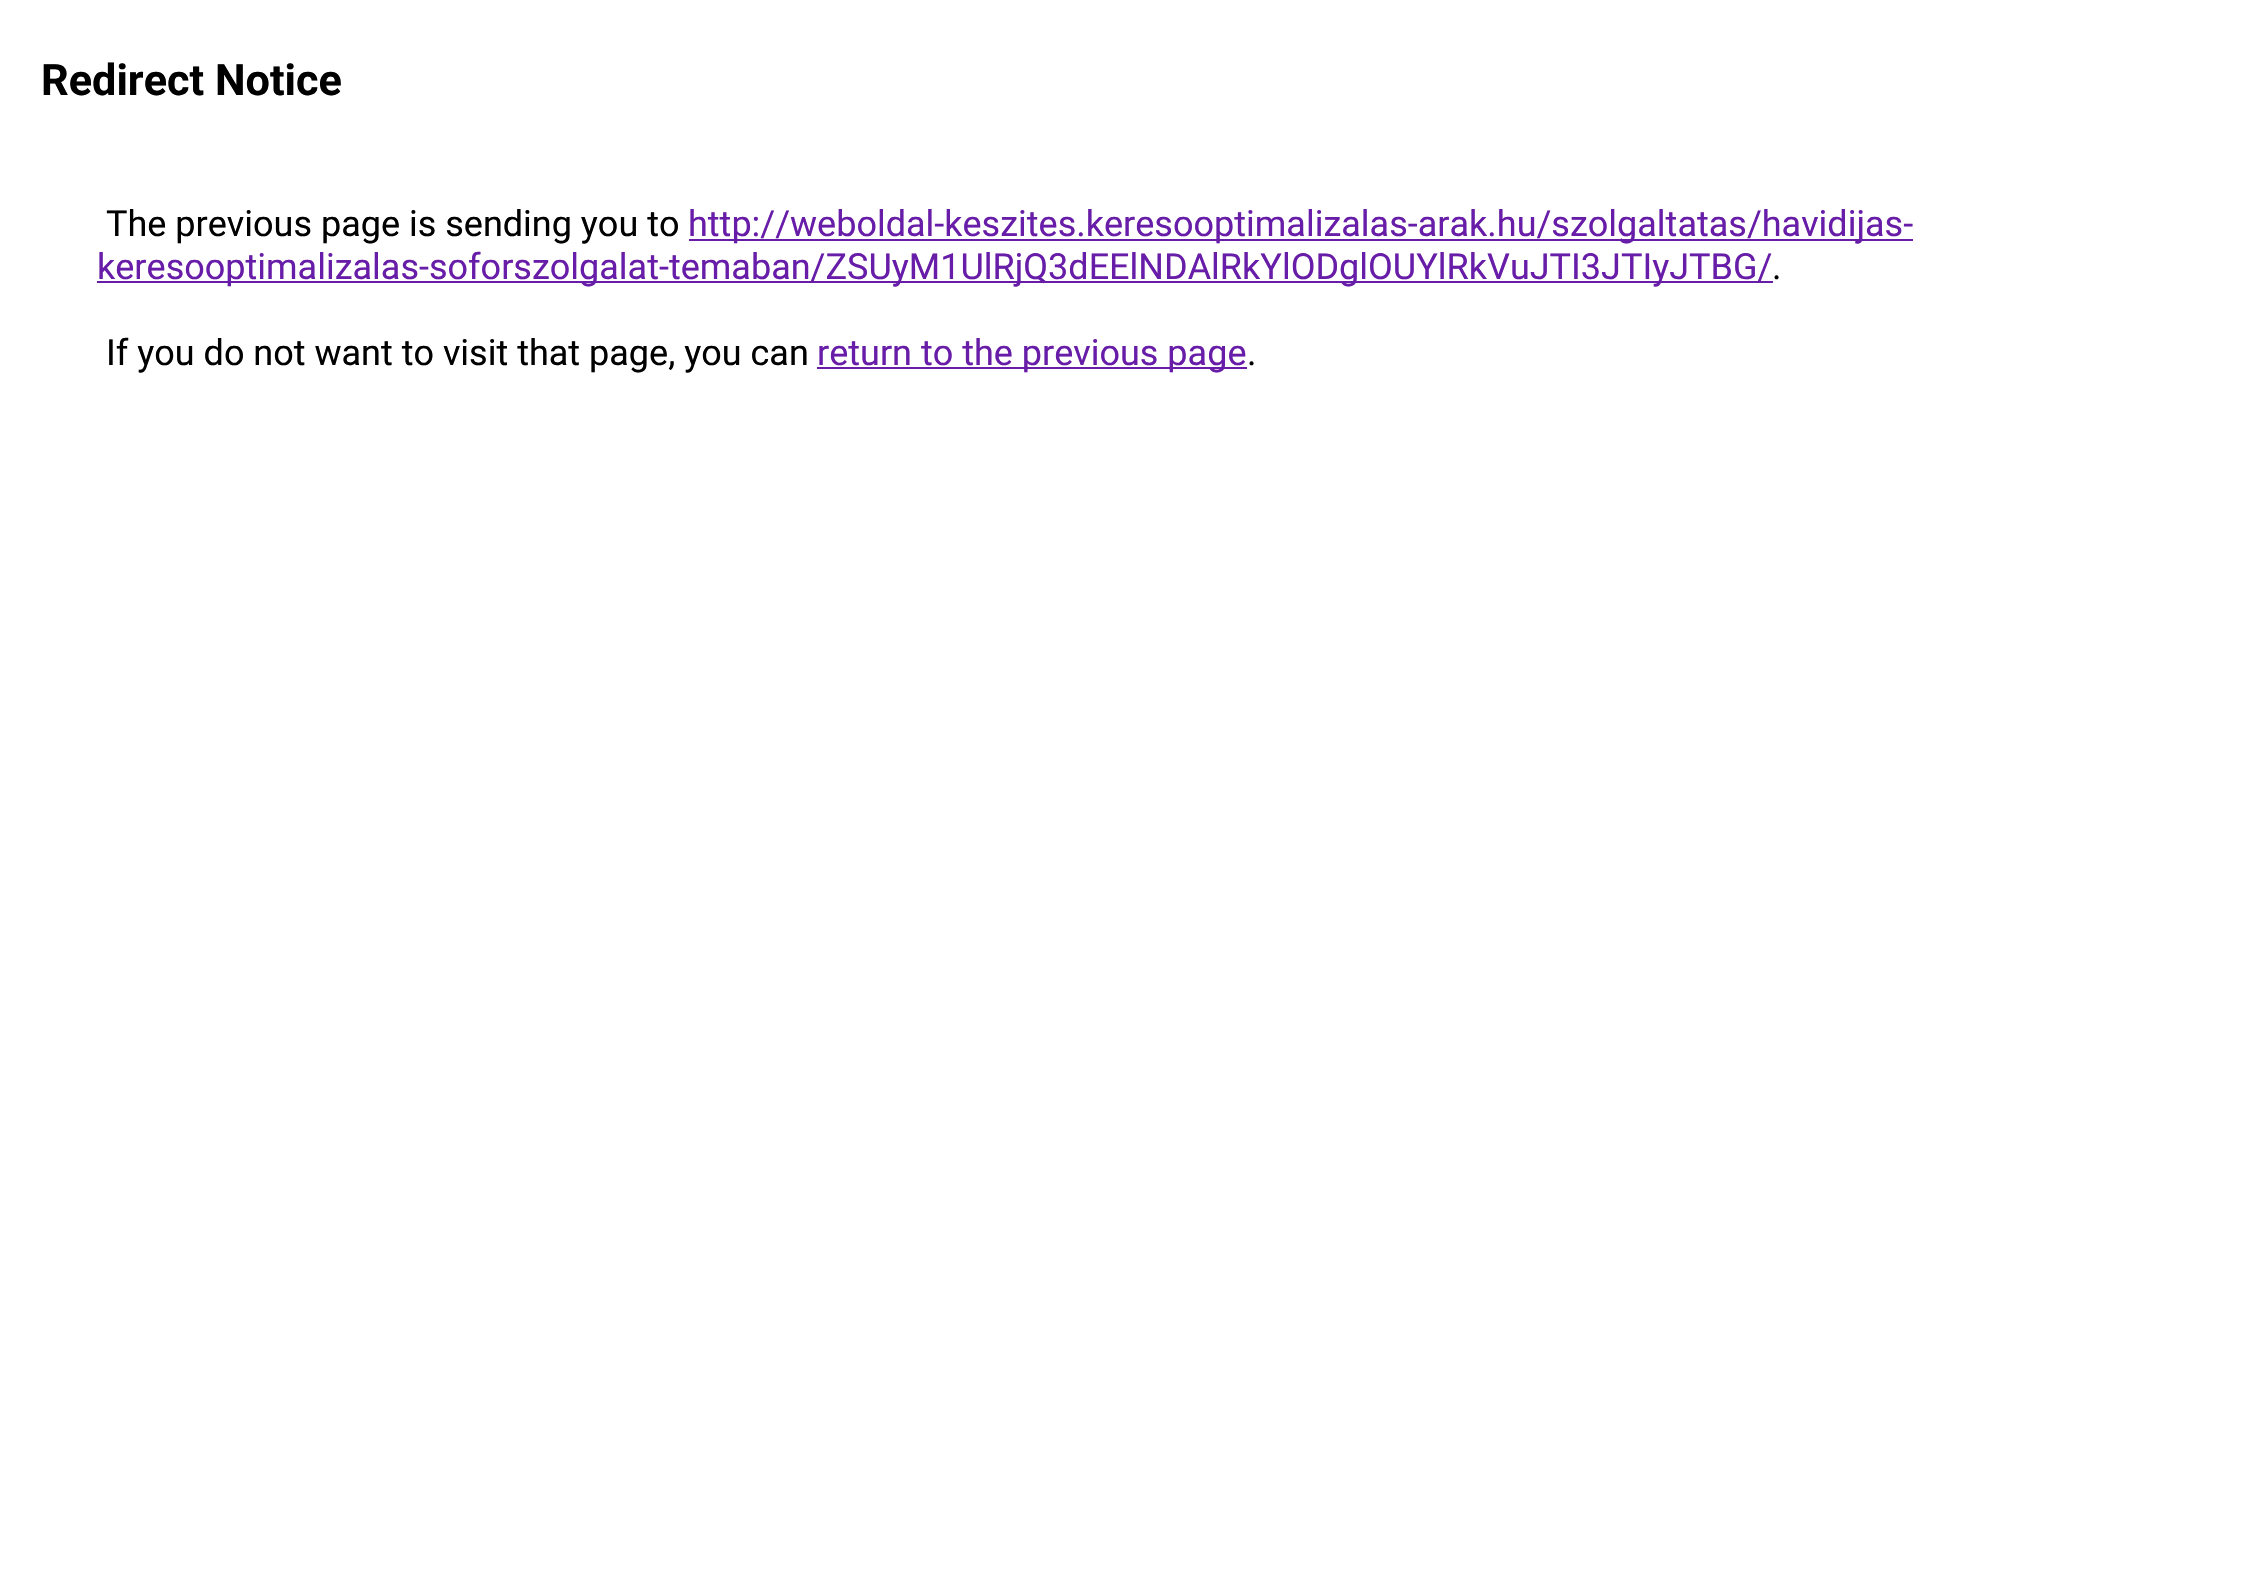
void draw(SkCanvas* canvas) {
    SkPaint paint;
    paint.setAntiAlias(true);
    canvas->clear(0xFFFFFFFF);
    SkFont font1(fontMgr->matchFamilyStyle("Roboto", SkFontStyle::Bold()), 43.25f);
    font1.setSubpixel(true);
    paint.setColor(0xFF000000);
    canvas->drawString("Redirect Notice", 41, 95, font1, paint);
    SkFont font2(fontMgr->matchFamilyStyle("Roboto", SkFontStyle::Normal()), 36);
    font2.setSubpixel(true);
    canvas->drawString("The previous page is sending you to", 106, 236, font2, paint);
    paint.setColor(0xFF681DA8);
    canvas->drawRect(SkRect::MakeXYWH(689, 239, 1224, 2), paint);
    canvas->drawString("http://weboldal-keszites.keresooptimalizalas-arak.hu/szolgaltatas/havidijas-", 688, 236, font2, paint);
    canvas->drawRect(SkRect::MakeXYWH(97, 281, 1676, 2), paint);
    canvas->drawString("keresooptimalizalas-soforszolgalat-temaban/ZSUyM1UlRjQ3dEElNDAlRkYlODglOUYlRkVuJTI3JTIyJTBG/", 97, 279, font2, paint);
    paint.setColor(0xFF000000);
    canvas->drawString(".", 1772, 279, font2, paint);
    canvas->drawString("If you do not want to visit that page, you can", 106, 365, font2, paint);
    paint.setColor(0xFF681DA8);
    canvas->drawRect(SkRect::MakeXYWH(817, 367, 430, 2), paint);
    canvas->drawString("return to the previous page", 817, 365, font2, paint);
    paint.setColor(0xFF000000);
    canvas->drawString(".", 1247, 365, font2, paint);
}
